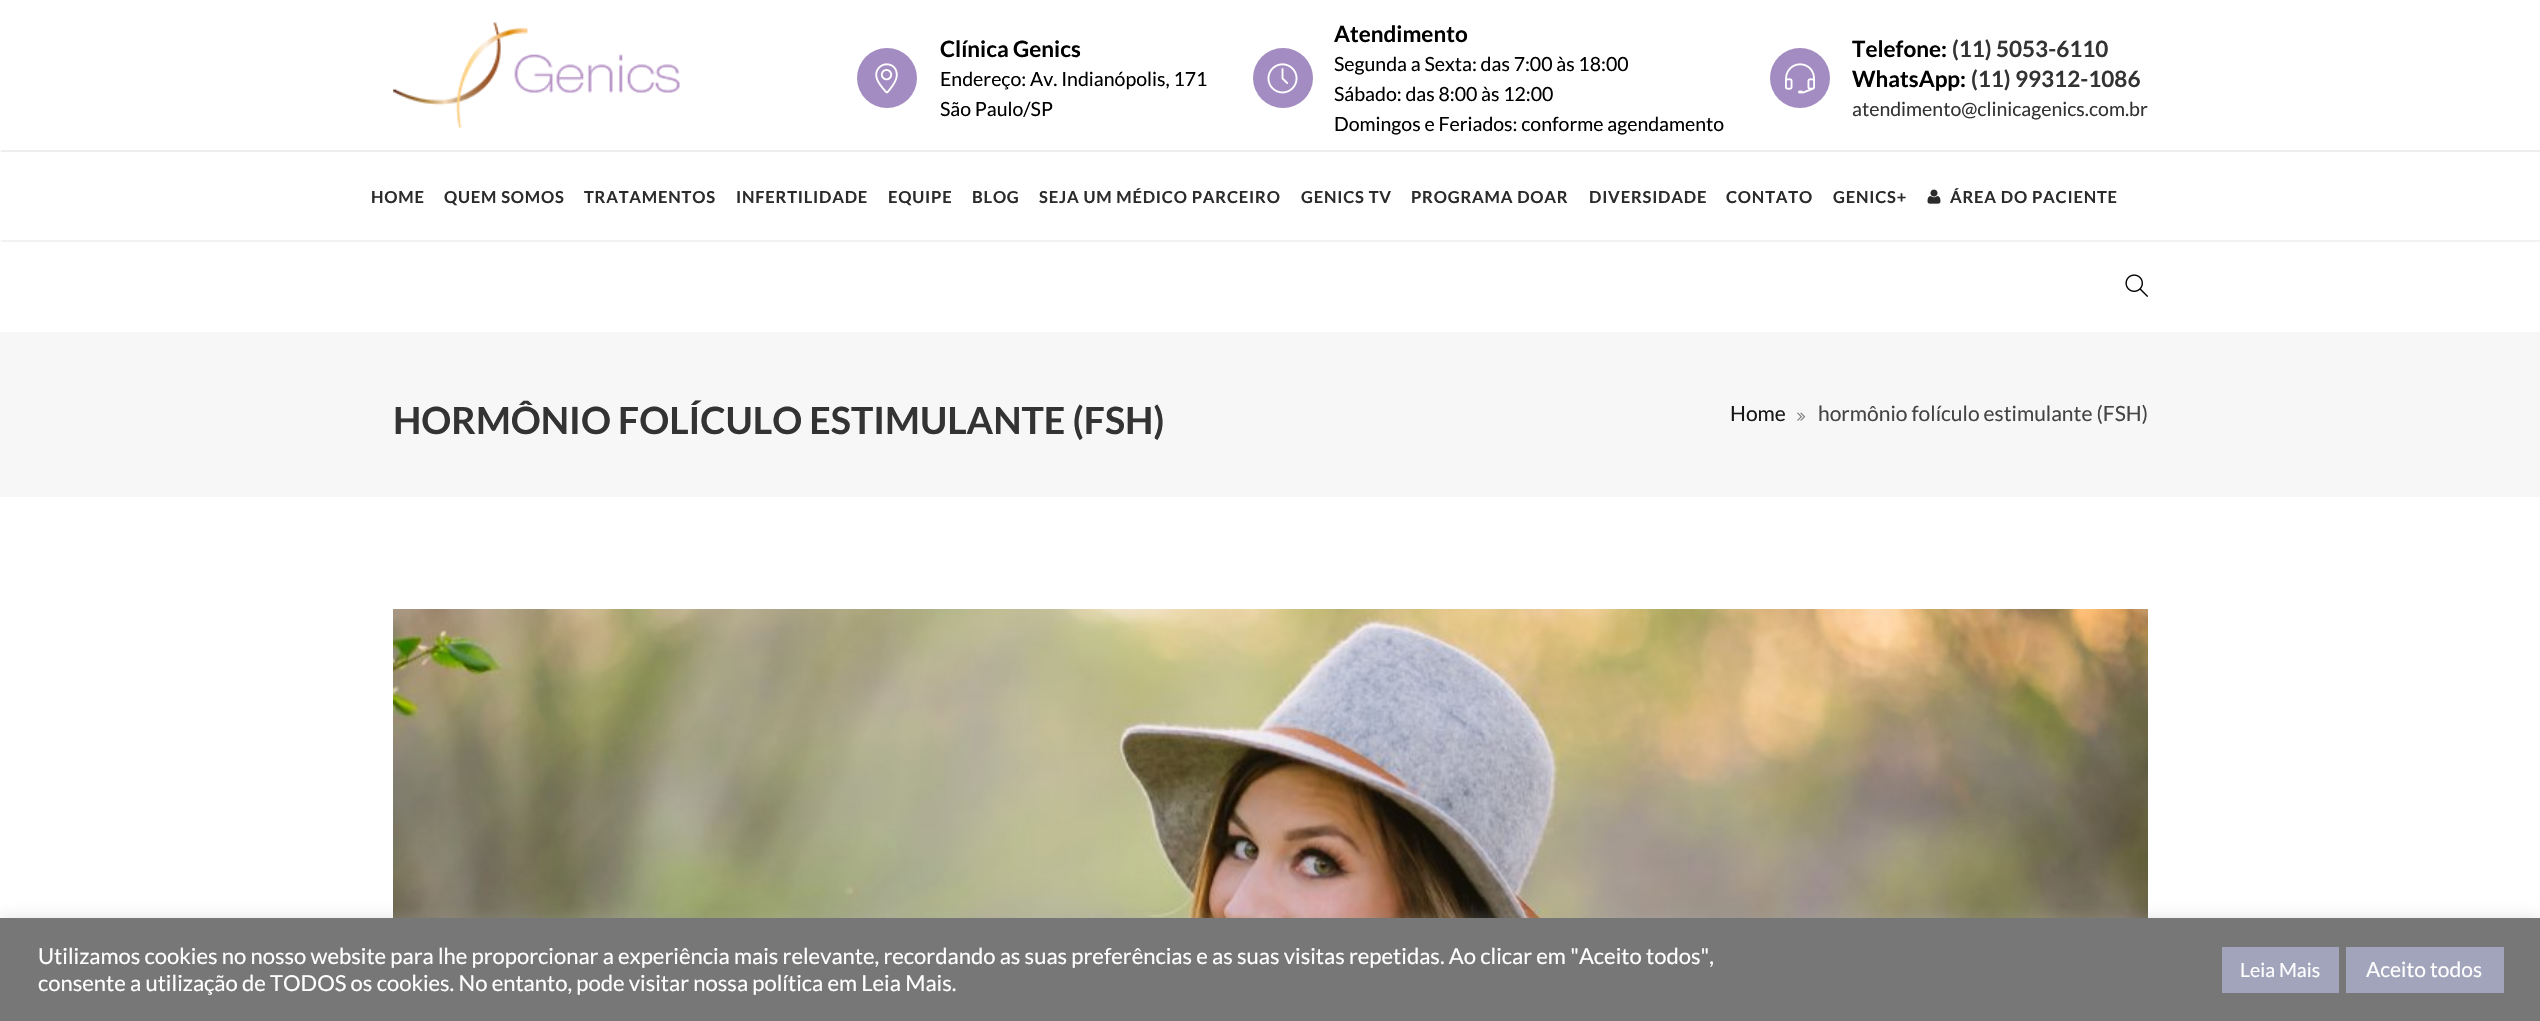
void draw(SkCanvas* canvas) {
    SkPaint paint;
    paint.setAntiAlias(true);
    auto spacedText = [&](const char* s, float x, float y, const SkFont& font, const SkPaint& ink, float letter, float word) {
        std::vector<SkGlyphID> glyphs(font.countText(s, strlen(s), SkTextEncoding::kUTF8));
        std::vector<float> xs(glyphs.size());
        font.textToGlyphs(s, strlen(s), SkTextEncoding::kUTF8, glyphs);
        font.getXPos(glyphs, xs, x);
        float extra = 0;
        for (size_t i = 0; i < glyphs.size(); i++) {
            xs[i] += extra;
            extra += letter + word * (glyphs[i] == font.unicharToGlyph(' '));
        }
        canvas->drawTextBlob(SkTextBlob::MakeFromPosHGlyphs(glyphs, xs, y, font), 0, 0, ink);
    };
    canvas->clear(0xFFFFFFFF);
    paint.setColor(0xFFEEEEEE);
    canvas->drawPath(SkPathBuilder().moveTo(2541, 152).lineTo(0, 152).lineTo(2, 150).lineTo(2540, 150).close().detach(), paint);
    canvas->drawImageRect(SkImages::DeferredFromEncodedData(SkData::MakeFromFileName("img1.png")), SkRect::MakeXYWH(393, 22, 287, 106), SkSamplingOptions());
    paint.setColor(0xFFA38CC1);
    canvas->drawCircle(887, 78, 30, paint);
    canvas->drawImageRect(SkImages::DeferredFromEncodedData(SkData::MakeFromFileName("img2.png")), SkRect::MakeXYWH(875, 63, 23, 31), SkSamplingOptions());
    SkFont font1(fontMgr->matchFamilyStyle("Lato", SkFontStyle::Bold()), 22.5f);
    font1.setSubpixel(true);
    paint.setColor(0xFF000000);
    canvas->drawString("Clínica Genics", 940, 57, font1, paint);
    SkFont font2(fontMgr->matchFamilyStyle("Lato", SkFontStyle::Normal()), 19.5f);
    font2.setSubpixel(true);
    canvas->drawString("Endereço: Av. Indianópolis, 171", 940, 86, font2, paint);
    canvas->drawString("São Paulo/SP", 940, 116, font2, paint);
    paint.setColor(0xFFA38CC1);
    canvas->drawCircle(1283, 78, 30, paint);
    canvas->drawImageRect(SkImages::DeferredFromEncodedData(SkData::MakeFromFileName("img3.png")), SkRect::MakeXYWH(1267, 63, 31, 31), SkSamplingOptions());
    paint.setColor(0xFF000000);
    canvas->drawString("Atendimento", 1334, 42, font1, paint);
    canvas->drawString("Segunda a Sexta: das 7:00 às 18:00", 1334, 71, font2, paint);
    canvas->drawString("Sábado: das 8:00 às 12:00", 1334, 101, font2, paint);
    canvas->drawString("Domingos e Feriados: conforme agendamento", 1334, 131, font2, paint);
    paint.setColor(0xFFA38CC1);
    canvas->drawCircle(1800, 78, 30, paint);
    canvas->drawImageRect(SkImages::DeferredFromEncodedData(SkData::MakeFromFileName("img4.png")), SkRect::MakeXYWH(1785, 63, 30, 31), SkSamplingOptions());
    paint.setColor(0xFF000000);
    canvas->drawString("Telefone:", 1852, 57, font1, paint);
    paint.setColor(0xFF333333);
    canvas->drawString("(11) 5053-6110", 1952, 57, font1, paint);
    paint.setColor(0xFF000000);
    canvas->drawString("WhatsApp:", 1852, 87, font1, paint);
    paint.setColor(0xFF333333);
    canvas->drawString("(11) 99312-1086", 1971, 87, font1, paint);
    canvas->drawString("atendimento@clinicagenics.com.br", 1852, 116, font2, paint);
    paint.setColor(0xFFF2F2F2);
    canvas->drawPath(SkPathBuilder().moveTo(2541, 242).lineTo(0, 242).lineTo(2, 240).lineTo(2540, 240).close().detach(), paint);
    SkFont font3(fontMgr->matchFamilyStyle("Lato", SkFontStyle::Bold()), 16.5f);
    font3.setSubpixel(true);
    paint.setColor(0xFF2B2B2B);
    spacedText("HOME", 371, 203, font3, paint, 0.8f, 0);
    spacedText("QUEM SOMOS", 444, 203, font3, paint, 0.8f, 0);
    spacedText("TRATAMENTOS", 584, 203, font3, paint, 0.8f, 0);
    spacedText("INFERTILIDADE", 736, 203, font3, paint, 0.8f, 0);
    spacedText("EQUIPE", 888, 203, font3, paint, 0.8f, 0);
    spacedText("BLOG", 972, 203, font3, paint, 0.8f, 0);
    spacedText("SEJA UM MÉDICO PARCEIRO", 1039, 203, font3, paint, 0.8f, 0);
    spacedText("GENICS TV", 1301, 203, font3, paint, 0.8f, 0);
    spacedText("PROGRAMA DOAR", 1411, 203, font3, paint, 0.8f, 0);
    spacedText("DIVERSIDADE", 1589, 203, font3, paint, 0.8f, 0);
    spacedText("CONTATO", 1726, 203, font3, paint, 0.8f, 0);
    spacedText("GENICS+", 1833, 203, font3, paint, 0.8f, 0);
    canvas->drawImageRect(SkImages::DeferredFromEncodedData(SkData::MakeFromFileName("img5.png")), SkRect::MakeXYWH(1927, 189, 14, 15), SkSamplingOptions());
    spacedText("ÁREA DO PACIENTE", 1950, 203, font3, paint, 0.8f, 0);
    canvas->drawImageRect(SkImages::DeferredFromEncodedData(SkData::MakeFromFileName("img6.png")), SkRect::MakeXYWH(2125, 274, 23, 23), SkSamplingOptions());
    paint.setColor(0xFFF7F7F7);
    canvas->drawRect(SkRect::MakeXYWH(0, 332, 2540, 165), paint);
    SkFont font4(fontMgr->matchFamilyStyle("Lato", SkFontStyle::Bold()), 37.5f);
    font4.setSubpixel(true);
    paint.setColor(0xFF333333);
    canvas->drawString("HORMÔNIO FOLÍCULO ESTIMULANTE (FSH)", 393, 434, font4, paint);
    SkFont font5(fontMgr->matchFamilyStyle("Lato", SkFontStyle::Normal()), 21);
    font5.setSubpixel(true);
    paint.setColor(0xFF171717);
    canvas->drawString("Home", 1730, 421, font5, paint);
    canvas->drawImageRect(SkImages::DeferredFromEncodedData(SkData::MakeFromFileName("img7.png")), SkRect::MakeXYWH(1797, 412, 9, 9), SkSamplingOptions());
    paint.setColor(0xFF444444);
    canvas->drawString("hormônio folículo estimulante (FSH)", 1818, 421, font5, paint);
    canvas->drawImageRect(SkImages::DeferredFromEncodedData(SkData::MakeFromFileName("img8.png")), SkRect::MakeXYWH(393, 609, 1755, 309), SkSamplingOptions());
    paint.setColor(0x4DACABAB);
    paint.setMaskFilter(SkMaskFilter::MakeBlur(kNormal_SkBlurStyle, 7.5f));
    canvas->drawRect(SkRect::MakeXYWH(0, 917, 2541, 103), paint);
    paint.setMaskFilter(nullptr);
    paint.setColor(0xFF777777);
    canvas->drawRect(SkRect::MakeXYWH(0, 918, 2540, 103), paint);
    SkFont font6(fontMgr->matchFamilyStyle("Lato", SkFontStyle::Normal()), 22);
    font6.setSubpixel(true);
    paint.setColor(0xFFFFFFFF);
    canvas->drawString("Utilizamos cookies no nosso website para lhe proporcionar a experiência mais relevante, recordando as suas preferências e as suas visitas repetidas. Ao clicar em \"Aceito todos\",", 38, 964, font6, paint);
    canvas->drawString("consente a utilização de TODOS os cookies. No entanto, pode visitar nossa política em Leia Mais.", 38, 991, font6, paint);
    paint.setColor(0xFFA2A4BC);
    canvas->drawRect(SkRect::MakeXYWH(2222, 947, 117, 46), paint);
    paint.setColor(0xFFFFFFFF);
    canvas->drawString("Leia Mais", 2240, 977, font2, paint);
    paint.setColor(0xFFA2A4BC);
    canvas->drawRect(SkRect::MakeXYWH(2346, 947, 158, 46), paint);
    paint.setColor(0xFFFFFFFF);
    canvas->drawString("Aceito todos", 2366, 977, font5, paint);
}
